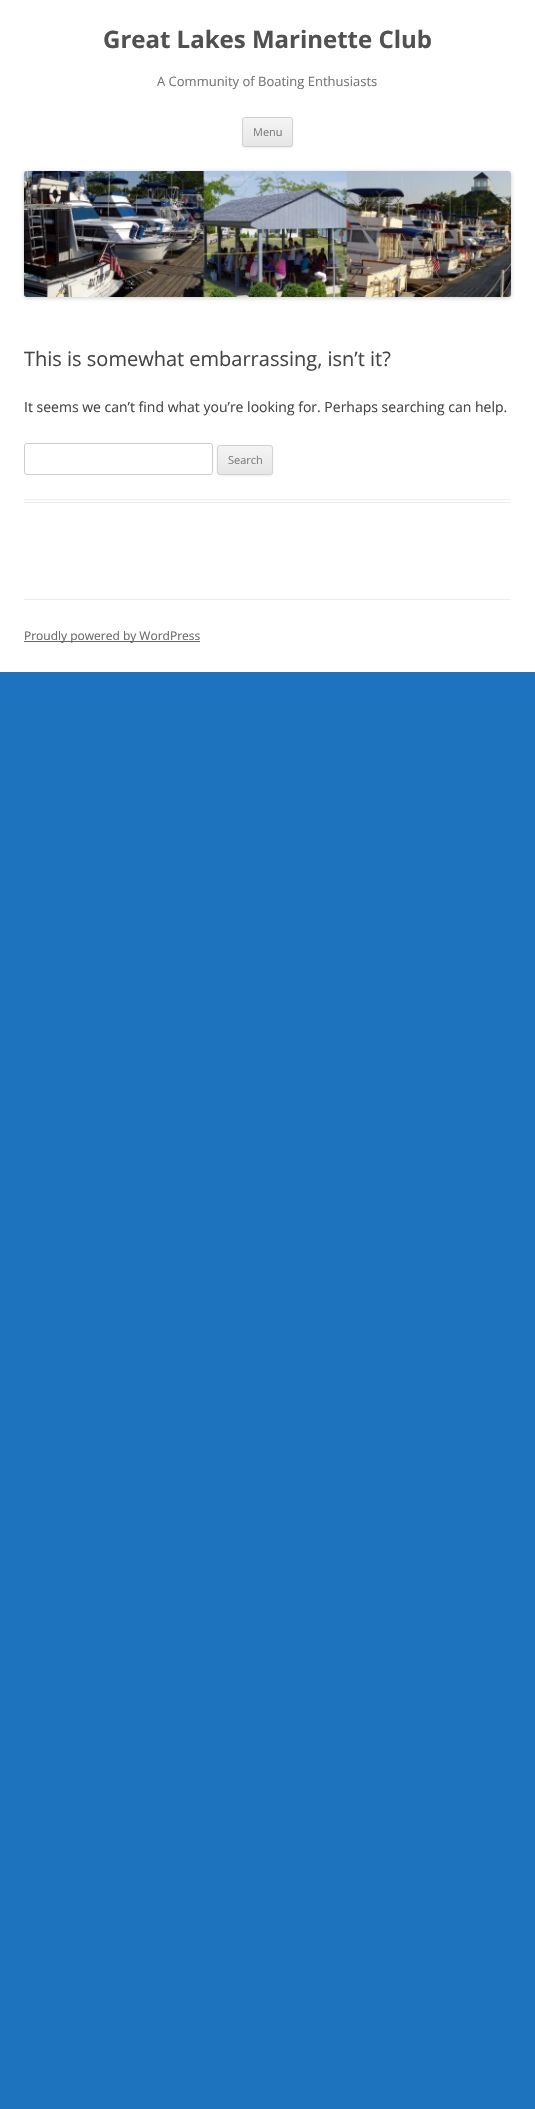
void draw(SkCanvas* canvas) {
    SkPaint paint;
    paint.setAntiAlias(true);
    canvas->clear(0xFF1E73BE);
    paint.setColor(0xFFFFFFFF);
    canvas->drawRect(SkRect::MakeXYWH(0, 0, 535, 672), paint);
    SkFont font1(fontMgr->matchFamilyStyle("Open Sans", SkFontStyle::Bold()), 24);
    font1.setSubpixel(true);
    paint.setColor(0xFF515151);
    canvas->drawString("Great Lakes Marinette Club", 103, 48, font1, paint);
    SkFont font2(fontMgr->matchFamilyStyle("Open Sans", SkFontStyle::Normal()), 13);
    font2.setSubpixel(true);
    paint.setColor(0xFF757575);
    canvas->drawString("A Community of Boating Enthusiasts", 157, 86, font2, paint);
    paint.setColor(0x1A404040);
    paint.setMaskFilter(SkMaskFilter::MakeBlur(kNormal_SkBlurStyle, 1));
    canvas->drawRoundRect(SkRect::MakeXYWH(242, 118, 51, 30), 3, 3, paint);
    paint.setMaskFilter(nullptr);
    canvas->save();
    canvas->clipPath(SkPathBuilder().moveTo(245, 117).lineTo(290, 117).cubicTo(291.5f, 117, 293, 118.5f, 293, 120).lineTo(293, 144).cubicTo(293, 145.5f, 291.5f, 147, 290, 147).lineTo(245, 147).cubicTo(243.5f, 147, 242, 145.5f, 242, 144).lineTo(242, 120).cubicTo(242, 118.5f, 243.5f, 117, 245, 117).close().detach(), true);
    {
        const SkColor colors[] = {0xFFF4F4F4, 0xFFE6E6E6};
        const float stops[] = {0, 1};
        const SkPoint ends[] = {{268, 118}, {268, 146}};
        paint.setShader(SkGradientShader::MakeLinear(ends, colors, stops, 2, SkTileMode::kClamp));
        paint.setAlpha(255);
    }
    canvas->drawRect(SkRect::MakeXYWH(242, 118, 51, 28), paint);
    canvas->restore();
    paint.setStyle(SkPaint::kStroke_Style);
    paint.setStrokeWidth(1);
    paint.setShader(nullptr);
    paint.setColor(0xFFD2D2D2);
    canvas->drawRoundRect(SkRect::MakeXYWH(242.5f, 117.5f, 50, 29), 2.5f, 2.5f, paint);
    SkFont font3(fontMgr->matchFamilyStyle("Open Sans", SkFontStyle::Normal()), 11);
    font3.setSubpixel(true);
    paint.setStyle(SkPaint::kFill_Style);
    paint.setColor(0xFF7C7C7C);
    canvas->drawString("Menu", 253, 136, font3, paint);
    paint.setColor(0x33000000);
    paint.setMaskFilter(SkMaskFilter::MakeBlur(kNormal_SkBlurStyle, 2));
    canvas->drawRoundRect(SkRect::MakeXYWH(24, 172, 487, 126), 3, 3, paint);
    paint.setMaskFilter(nullptr);
    canvas->drawImageRect(SkImages::DeferredFromEncodedData(SkData::MakeFromFileName("img1.png")), SkRect::MakeXYWH(24, 171, 487, 126), SkSamplingOptions());
    paint.setColor(0xFFEDEDED);
    canvas->drawRect(SkRect::MakeXYWH(24, 499, 487, 1), paint);
    canvas->drawRect(SkRect::MakeXYWH(24, 502, 487, 1), paint);
    SkFont font4(fontMgr->matchFamilyStyle("Open Sans", SkFontStyle::Normal()), 20);
    font4.setSubpixel(true);
    paint.setColor(0xFF444444);
    canvas->drawString("This is somewhat embarrassing, isn’t it?", 24, 366, font4, paint);
    SkFont font5(fontMgr->matchFamilyStyle("Open Sans", SkFontStyle::Normal()), 14);
    font5.setSubpixel(true);
    canvas->drawString("It seems we can’t find what you’re looking for. Perhaps searching can help.", 24, 412, font5, paint);
    paint.setStyle(SkPaint::kStroke_Style);
    paint.setColor(0xFFCCCCCC);
    canvas->drawRoundRect(SkRect::MakeXYWH(24.5f, 443.5f, 188, 31), 2.5f, 2.5f, paint);
    paint.setStyle(SkPaint::kFill_Style);
    paint.setColor(0x1A404040);
    paint.setMaskFilter(SkMaskFilter::MakeBlur(kNormal_SkBlurStyle, 1));
    canvas->drawRoundRect(SkRect::MakeXYWH(217, 446, 56, 30), 3, 3, paint);
    paint.setMaskFilter(nullptr);
    canvas->save();
    canvas->clipPath(SkPathBuilder().moveTo(220, 445).lineTo(270, 445).cubicTo(271.5f, 445, 273, 446.5f, 273, 448).lineTo(273, 472).cubicTo(273, 473.5f, 271.5f, 475, 270, 475).lineTo(220, 475).cubicTo(218.5f, 475, 217, 473.5f, 217, 472).lineTo(217, 448).cubicTo(217, 446.5f, 218.5f, 445, 220, 445).close().detach(), true);
    {
        const SkColor colors[] = {0xFFF4F4F4, 0xFFE6E6E6};
        const float stops[] = {0, 1};
        const SkPoint ends[] = {{245, 446}, {245, 474}};
        paint.setShader(SkGradientShader::MakeLinear(ends, colors, stops, 2, SkTileMode::kClamp));
        paint.setAlpha(255);
    }
    canvas->drawRect(SkRect::MakeXYWH(217, 446, 56, 28), paint);
    canvas->restore();
    paint.setStyle(SkPaint::kStroke_Style);
    paint.setShader(nullptr);
    paint.setColor(0xFFD2D2D2);
    canvas->drawRoundRect(SkRect::MakeXYWH(217.5f, 445.5f, 55, 29), 2.5f, 2.5f, paint);
    paint.setStyle(SkPaint::kFill_Style);
    paint.setColor(0xFF7C7C7C);
    canvas->drawString("Search", 228, 464, font3, paint);
    paint.setColor(0xFFEDEDED);
    canvas->drawRect(SkRect::MakeXYWH(24, 599, 487, 1), paint);
    paint.setColor(0xFF686868);
    canvas->drawRect(SkRect::MakeXYWH(24, 641, 176, 1), paint);
    SkFont font6(fontMgr->matchFamilyStyle("Open Sans", SkFontStyle::Normal()), 12);
    font6.setSubpixel(true);
    canvas->drawString("Proudly powered by WordPress", 24, 640, font6, paint);
}
